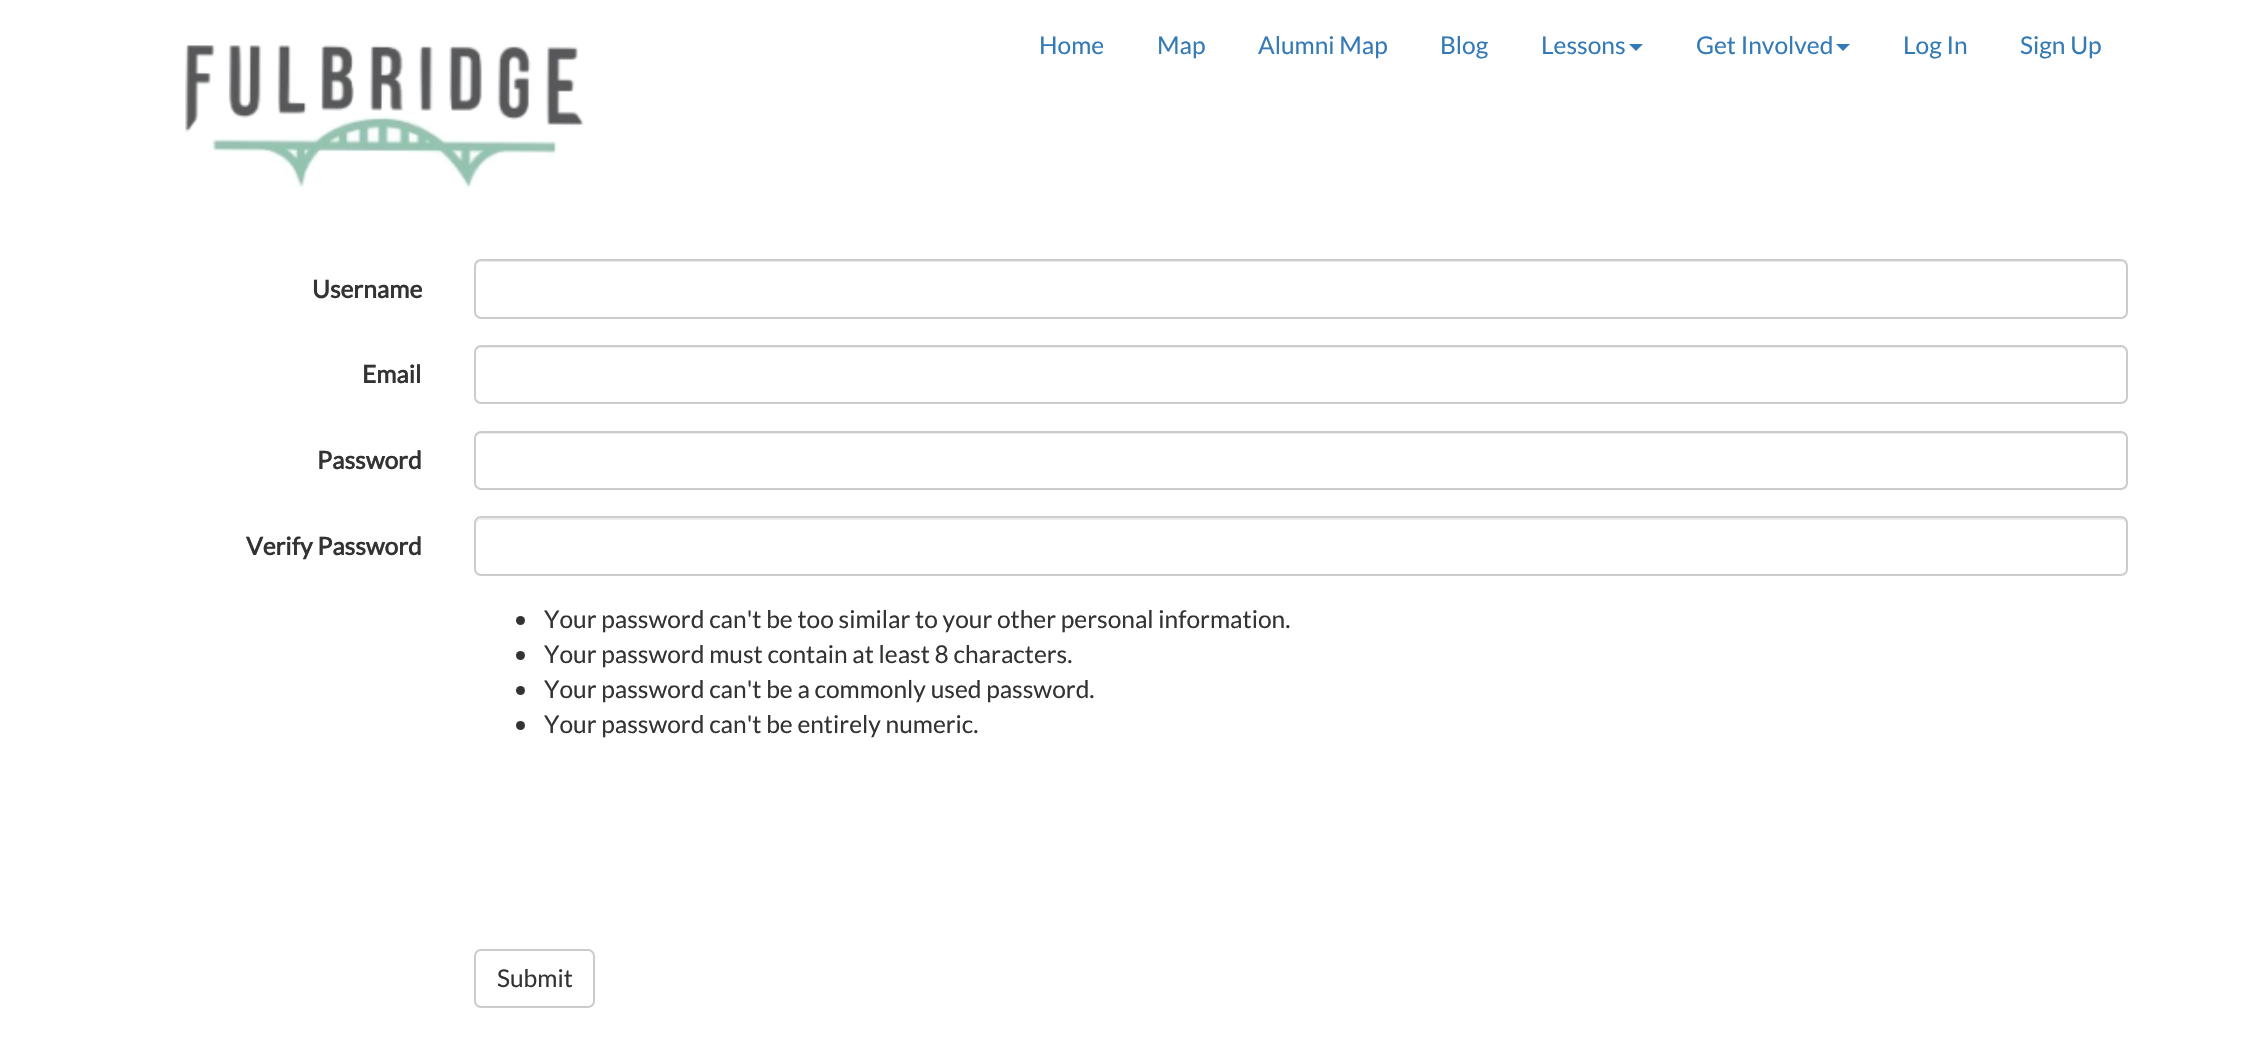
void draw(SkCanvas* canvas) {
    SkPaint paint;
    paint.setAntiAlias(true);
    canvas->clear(0xFFFFFFFF);
    canvas->drawImageRect(SkImages::DeferredFromEncodedData(SkData::MakeFromFileName("img1.png")), SkRect::MakeXYWH(185, 45, 399, 143), SkSamplingOptions());
    SkFont font1(fontMgr->matchFamilyStyle("Lato", SkFontStyle::Normal()), 24.5f);
    font1.setSubpixel(true);
    paint.setColor(0xFF337AB7);
    canvas->drawString("Home", 1039, 54, font1, paint);
    canvas->drawString("Map", 1157, 54, font1, paint);
    canvas->drawString("Alumni Map", 1258, 54, font1, paint);
    canvas->drawString("Blog", 1440, 54, font1, paint);
    canvas->drawString("Lessons", 1541, 54, font1, paint);
    canvas->drawPath(SkPathBuilder().moveTo(1629, 44).lineTo(1643, 44).lineTo(1636, 51).close().detach(), paint);
    canvas->drawString("Get Involved", 1696, 54, font1, paint);
    canvas->drawPath(SkPathBuilder().moveTo(1836, 44).lineTo(1850, 44).lineTo(1843, 51).close().detach(), paint);
    canvas->drawString("Log In", 1903, 54, font1, paint);
    canvas->drawString("Sign Up", 2020, 54, font1, paint);
    SkFont font2(fontMgr->matchFamilyStyle("Lato", SkFontStyle::Bold()), 24.5f);
    font2.setSubpixel(true);
    paint.setColor(0xFF333333);
    canvas->drawString("Username", 312, 298, font2, paint);
    paint.setColor(0xFFECECEC);
    canvas->drawPath(SkPathBuilder().moveTo(481, 262).lineTo(2121, 262).cubicTo(2124, 262, 2126, 265, 2126, 268).cubicTo(2126, 265, 2125, 261, 2121, 261).lineTo(481, 261).cubicTo(477, 261, 476, 265, 476, 268).cubicTo(476, 265, 478, 262, 481, 262).close().detach(), paint);
    paint.setStyle(SkPaint::kStroke_Style);
    paint.setStrokeWidth(2);
    paint.setColor(0xFFCCCCCC);
    canvas->drawRoundRect(SkRect::MakeXYWH(475, 260, 1652, 58), 6, 6, paint);
    paint.setStyle(SkPaint::kFill_Style);
    paint.setColor(0xFF333333);
    canvas->drawString("Email", 362, 383, font2, paint);
    paint.setColor(0xFFECECEC);
    canvas->drawPath(SkPathBuilder().moveTo(481, 348).lineTo(2121, 348).cubicTo(2124, 348, 2126, 351, 2126, 354).cubicTo(2126, 351, 2125, 347, 2121, 347).lineTo(481, 347).cubicTo(477, 347, 476, 351, 476, 354).cubicTo(476, 351, 478, 348, 481, 348).close().detach(), paint);
    paint.setStyle(SkPaint::kStroke_Style);
    paint.setColor(0xFFCCCCCC);
    canvas->drawRoundRect(SkRect::MakeXYWH(475, 346, 1652, 57), 6, 6, paint);
    paint.setStyle(SkPaint::kFill_Style);
    paint.setColor(0xFF333333);
    canvas->drawString("Password", 317, 469, font2, paint);
    paint.setColor(0xFFECECEC);
    canvas->drawPath(SkPathBuilder().moveTo(481, 434).lineTo(2121, 434).cubicTo(2124, 434, 2126, 436, 2126, 439).cubicTo(2126, 436, 2125, 432, 2121, 432).lineTo(481, 432).cubicTo(477, 432, 476, 436, 476, 439).cubicTo(476, 436, 478, 434, 481, 434).close().detach(), paint);
    paint.setStyle(SkPaint::kStroke_Style);
    paint.setColor(0xFFCCCCCC);
    canvas->drawRoundRect(SkRect::MakeXYWH(475, 432, 1652, 57), 6, 6, paint);
    paint.setStyle(SkPaint::kFill_Style);
    paint.setColor(0xFF333333);
    canvas->drawString("Verify Password", 246, 555, font2, paint);
    paint.setColor(0xFFECECEC);
    canvas->drawPath(SkPathBuilder().moveTo(481, 520).lineTo(2121, 520).cubicTo(2124, 520, 2126, 522, 2126, 525).cubicTo(2126, 522, 2125, 518, 2121, 518).lineTo(481, 518).cubicTo(477, 518, 476, 522, 476, 525).cubicTo(476, 522, 478, 520, 481, 520).close().detach(), paint);
    paint.setStyle(SkPaint::kStroke_Style);
    paint.setColor(0xFFCCCCCC);
    canvas->drawRoundRect(SkRect::MakeXYWH(475, 517, 1652, 58), 6, 6, paint);
    paint.setStyle(SkPaint::kFill_Style);
    paint.setColor(0xFF333333);
    canvas->drawCircle(520.5f, 620.5f, 4.5f, paint);
    canvas->drawString("Your password can't be too similar to your other personal information.", 544, 628, font1, paint);
    canvas->drawCircle(520.5f, 655.5f, 4.5f, paint);
    canvas->drawString("Your password must contain at least 8 characters.", 544, 663, font1, paint);
    canvas->drawCircle(520.5f, 690.5f, 4.5f, paint);
    canvas->drawString("Your password can't be a commonly used password.", 544, 698, font1, paint);
    canvas->drawCircle(520.5f, 725.5f, 4.5f, paint);
    canvas->drawString("Your password can't be entirely numeric.", 544, 733, font1, paint);
    paint.setStyle(SkPaint::kStroke_Style);
    paint.setColor(0xFFCCCCCC);
    canvas->drawRoundRect(SkRect::MakeXYWH(475, 950, 119, 57), 6, 6, paint);
    paint.setStyle(SkPaint::kFill_Style);
    paint.setColor(0xFF333333);
    canvas->drawString("Submit", 497, 987, font1, paint);
}
